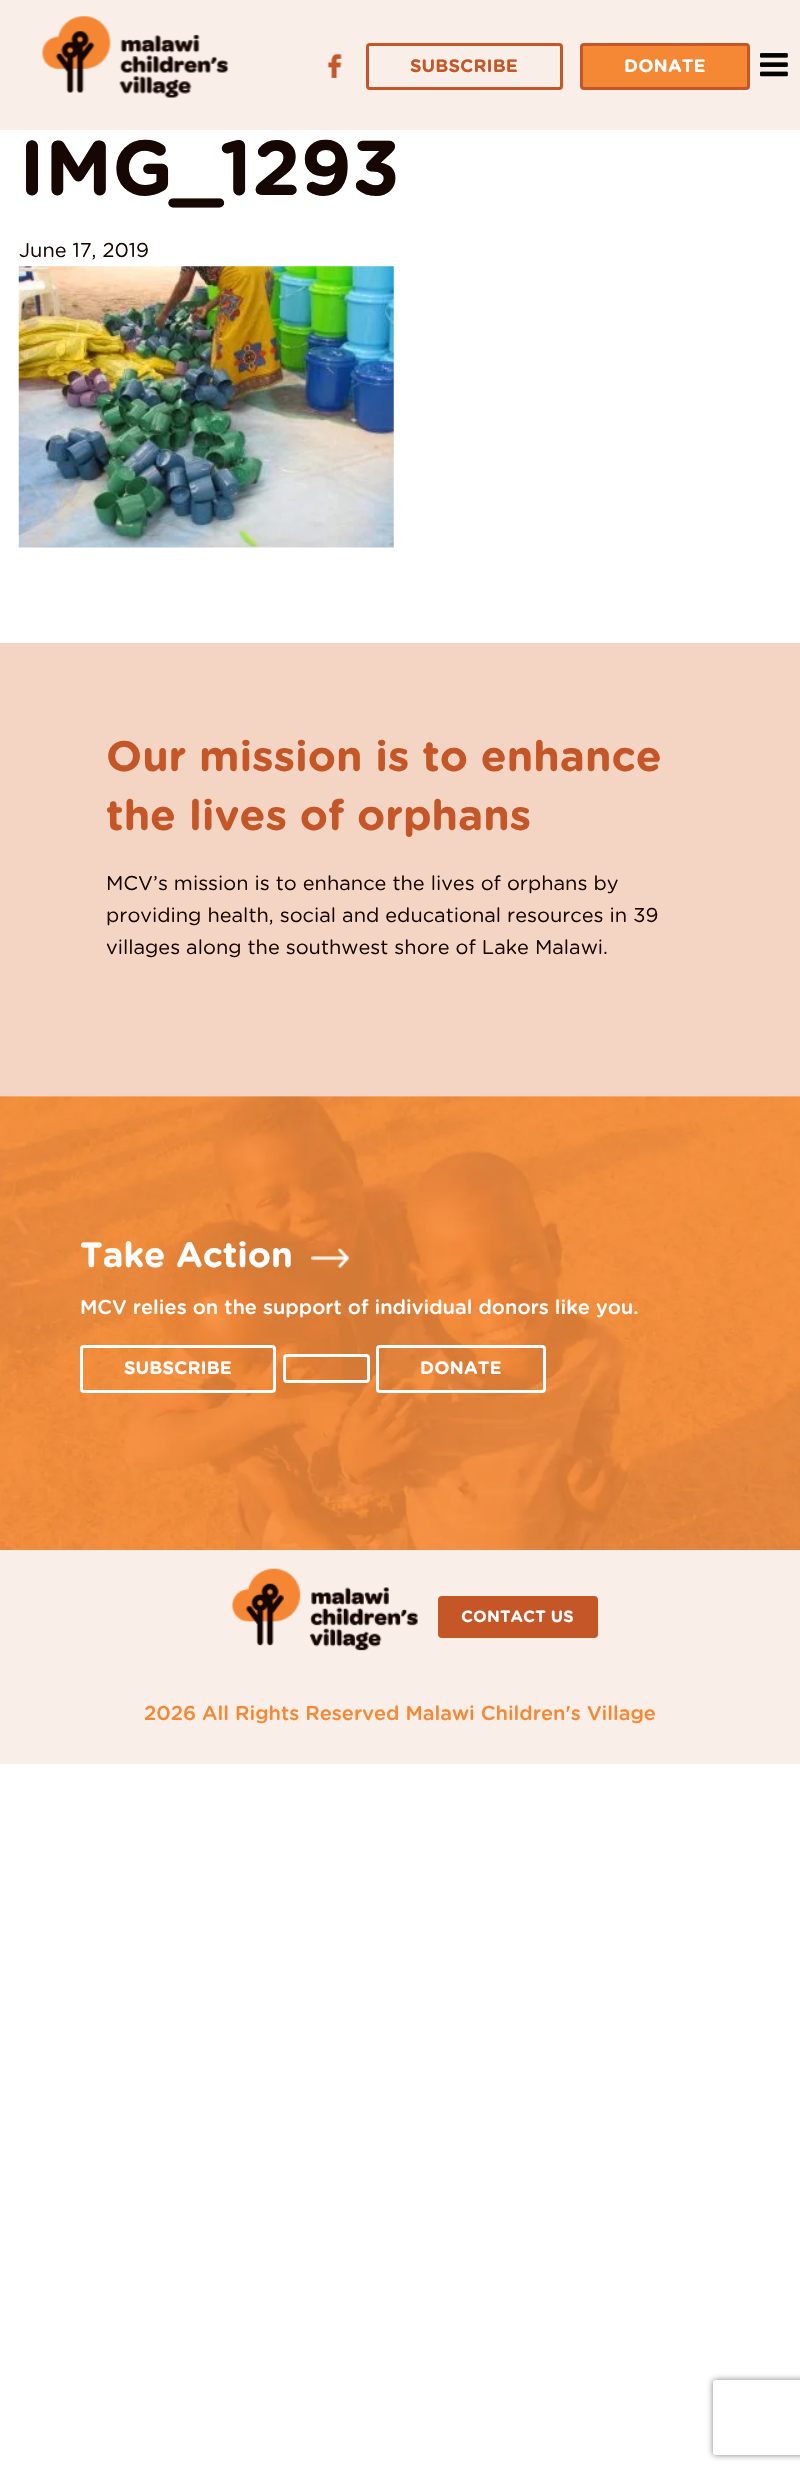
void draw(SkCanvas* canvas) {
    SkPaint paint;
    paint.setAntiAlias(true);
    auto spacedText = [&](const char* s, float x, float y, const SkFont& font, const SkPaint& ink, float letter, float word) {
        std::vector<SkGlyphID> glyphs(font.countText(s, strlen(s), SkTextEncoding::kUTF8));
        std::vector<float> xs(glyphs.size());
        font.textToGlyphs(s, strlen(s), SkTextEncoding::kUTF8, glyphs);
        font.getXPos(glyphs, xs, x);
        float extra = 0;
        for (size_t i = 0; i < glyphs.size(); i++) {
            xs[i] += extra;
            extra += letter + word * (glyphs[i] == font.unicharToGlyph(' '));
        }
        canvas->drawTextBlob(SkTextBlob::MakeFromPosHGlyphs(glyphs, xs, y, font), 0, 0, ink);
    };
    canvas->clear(0xFFFFFFFF);
    paint.setColor(0xFFF9EEE8);
    canvas->drawRect(SkRect::MakeXYWH(0, 0, 800, 130), paint);
    canvas->drawImageRect(SkImages::DeferredFromEncodedData(SkData::MakeFromFileName("img1.png")), SkRect::MakeXYWH(41, 16, 188, 82), SkSamplingOptions());
    canvas->drawImageRect(SkImages::DeferredFromEncodedData(SkData::MakeFromFileName("img2.png")), SkRect::MakeXYWH(327, 53, 15, 25), SkSamplingOptions());
    paint.setStyle(SkPaint::kStroke_Style);
    paint.setStrokeWidth(3);
    paint.setColor(0xFFC45627);
    canvas->drawRoundRect(SkRect::MakeXYWH(367.5f, 44.5f, 194, 44), 2.5f, 2.5f, paint);
    SkFont font1(fontMgr->matchFamilyStyle("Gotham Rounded", SkFontStyle::Bold()), 18);
    font1.setSubpixel(true);
    paint.setStyle(SkPaint::kFill_Style);
    spacedText("SUBSCRIBE", 410, 72, font1, paint, 0.1f, 0);
    paint.setColor(0xFFF58834);
    canvas->drawRoundRect(SkRect::MakeXYWH(581.5f, 44.5f, 167, 44), 2.5f, 2.5f, paint);
    paint.setStyle(SkPaint::kStroke_Style);
    paint.setColor(0xFFC45627);
    canvas->drawRoundRect(SkRect::MakeXYWH(581.5f, 44.5f, 167, 44), 2.5f, 2.5f, paint);
    paint.setStyle(SkPaint::kFill_Style);
    paint.setColor(0xFFFFFFFF);
    spacedText("DONATE", 624, 72, font1, paint, 0.1f, 0);
    canvas->drawImageRect(SkImages::DeferredFromEncodedData(SkData::MakeFromFileName("img3.png")), SkRect::MakeXYWH(760, 53, 28, 24), SkSamplingOptions());
    SkFont font2(fontMgr->matchFamilyStyle("Gotham Rounded", SkFontStyle::Bold()), 77.5f);
    font2.setSubpixel(true);
    paint.setColor(0xFF160702);
    canvas->drawString("IMG_1293", 19, 195, font2, paint);
    SkFont font3(fontMgr->matchFamilyStyle("Gotham Rounded", SkFontStyle::Normal()), 20);
    font3.setSubpixel(true);
    canvas->drawString("June 17, 2019", 19, 257, font3, paint);
    canvas->drawImageRect(SkImages::DeferredFromEncodedData(SkData::MakeFromFileName("img4.png")), SkRect::MakeXYWH(18, 266, 376, 282), SkSamplingOptions());
    paint.setColor(0xFFF4D4C3);
    canvas->drawRect(SkRect::MakeXYWH(0, 643, 800, 453), paint);
    SkFont font4(fontMgr->matchFamilyStyle("Gotham Rounded", SkFontStyle::Bold()), 42.5f);
    font4.setSubpixel(true);
    paint.setColor(0xFFC45627);
    canvas->drawString("Our mission is to enhance", 106, 771, font4, paint);
    canvas->drawString("the lives of orphans", 106, 830, font4, paint);
    paint.setColor(0xFF160702);
    canvas->drawString("MCV’s mission is to enhance the lives of orphans by", 106, 890, font3, paint);
    canvas->drawString("providing health, social and educational resources in 39", 106, 922, font3, paint);
    canvas->drawString("villages along the southwest shore of Lake Malawi.", 106, 954, font3, paint);
    canvas->drawImageRect(SkImages::DeferredFromEncodedData(SkData::MakeFromFileName("img5.png")), SkRect::MakeXYWH(0, 1096, 800, 454), SkSamplingOptions());
    SkFont font5(fontMgr->matchFamilyStyle("Gotham Rounded", SkFontStyle::Bold()), 35);
    font5.setSubpixel(true);
    paint.setColor(0xFFFFFFFF);
    canvas->drawString("Take Action", 80, 1267, font5, paint);
    canvas->drawImageRect(SkImages::DeferredFromEncodedData(SkData::MakeFromFileName("img6.png")), SkRect::MakeXYWH(311, 1248, 38, 20), SkSamplingOptions());
    SkFont font6(fontMgr->matchFamilyStyle("Gotham Rounded", SkFontStyle(500, SkFontStyle::kNormal_Width, SkFontStyle::kUpright_Slant)), 20);
    font6.setSubpixel(true);
    canvas->drawString("MCV relies on the support of individual donors like you.", 80, 1314, font6, paint);
    paint.setStyle(SkPaint::kStroke_Style);
    canvas->drawRoundRect(SkRect::MakeXYWH(81.5f, 1346.5f, 193, 45), 2.5f, 2.5f, paint);
    paint.setStyle(SkPaint::kFill_Style);
    spacedText("SUBSCRIBE", 124, 1374, font1, paint, 0.1f, 0);
    paint.setStyle(SkPaint::kStroke_Style);
    canvas->drawRoundRect(SkRect::MakeXYWH(284.5f, 1355.5f, 84, 26), 2.5f, 2.5f, paint);
    canvas->drawRoundRect(SkRect::MakeXYWH(377.5f, 1346.5f, 167, 45), 2.5f, 2.5f, paint);
    paint.setStyle(SkPaint::kFill_Style);
    spacedText("DONATE", 420, 1374, font1, paint, 0.1f, 0);
    paint.setColor(0xFFF9EEE8);
    canvas->drawRect(SkRect::MakeXYWH(0, 1550, 800, 214), paint);
    canvas->drawImageRect(SkImages::DeferredFromEncodedData(SkData::MakeFromFileName("img7.png")), SkRect::MakeXYWH(232, 1568, 186, 83), SkSamplingOptions());
    paint.setColor(0xFFC45627);
    canvas->drawRoundRect(SkRect::MakeXYWH(439.5f, 1597.5f, 157, 39), 2.5f, 2.5f, paint);
    paint.setStyle(SkPaint::kStroke_Style);
    canvas->drawRoundRect(SkRect::MakeXYWH(439.5f, 1597.5f, 157, 39), 2.5f, 2.5f, paint);
    SkFont font7(fontMgr->matchFamilyStyle("Gotham Rounded", SkFontStyle::Bold()), 16.25f);
    font7.setSubpixel(true);
    paint.setStyle(SkPaint::kFill_Style);
    paint.setColor(0xFFFFFFFF);
    spacedText("CONTACT US", 461, 1622, font7, paint, 0.1f, 0);
    paint.setColor(0xFFF58834);
    canvas->drawString("2026 All Rights Reserved Malawi Children's Village", 144, 1720, font6, paint);
    canvas->save();
    canvas->clipPath(SkPathBuilder(SkPathFillType::kEvenOdd).moveTo(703, 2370).lineTo(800, 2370).lineTo(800, 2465).lineTo(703, 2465).close().moveTo(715.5f, 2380).lineTo(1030.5f, 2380).cubicTo(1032, 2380, 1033, 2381, 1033, 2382.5f).lineTo(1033, 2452.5f).cubicTo(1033, 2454, 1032, 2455, 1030.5f, 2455).lineTo(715.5f, 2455).cubicTo(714, 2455, 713, 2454, 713, 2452.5f).lineTo(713, 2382.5f).cubicTo(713, 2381, 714, 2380, 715.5f, 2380).close().detach(), true);
    paint.setColor(0xFF808080);
    paint.setMaskFilter(SkMaskFilter::MakeBlur(kNormal_SkBlurStyle, 3));
    canvas->drawRoundRect(SkRect::MakeXYWH(713, 2380, 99, 75), 2.5f, 2.5f, paint);
    paint.setMaskFilter(nullptr);
    canvas->restore();
}
